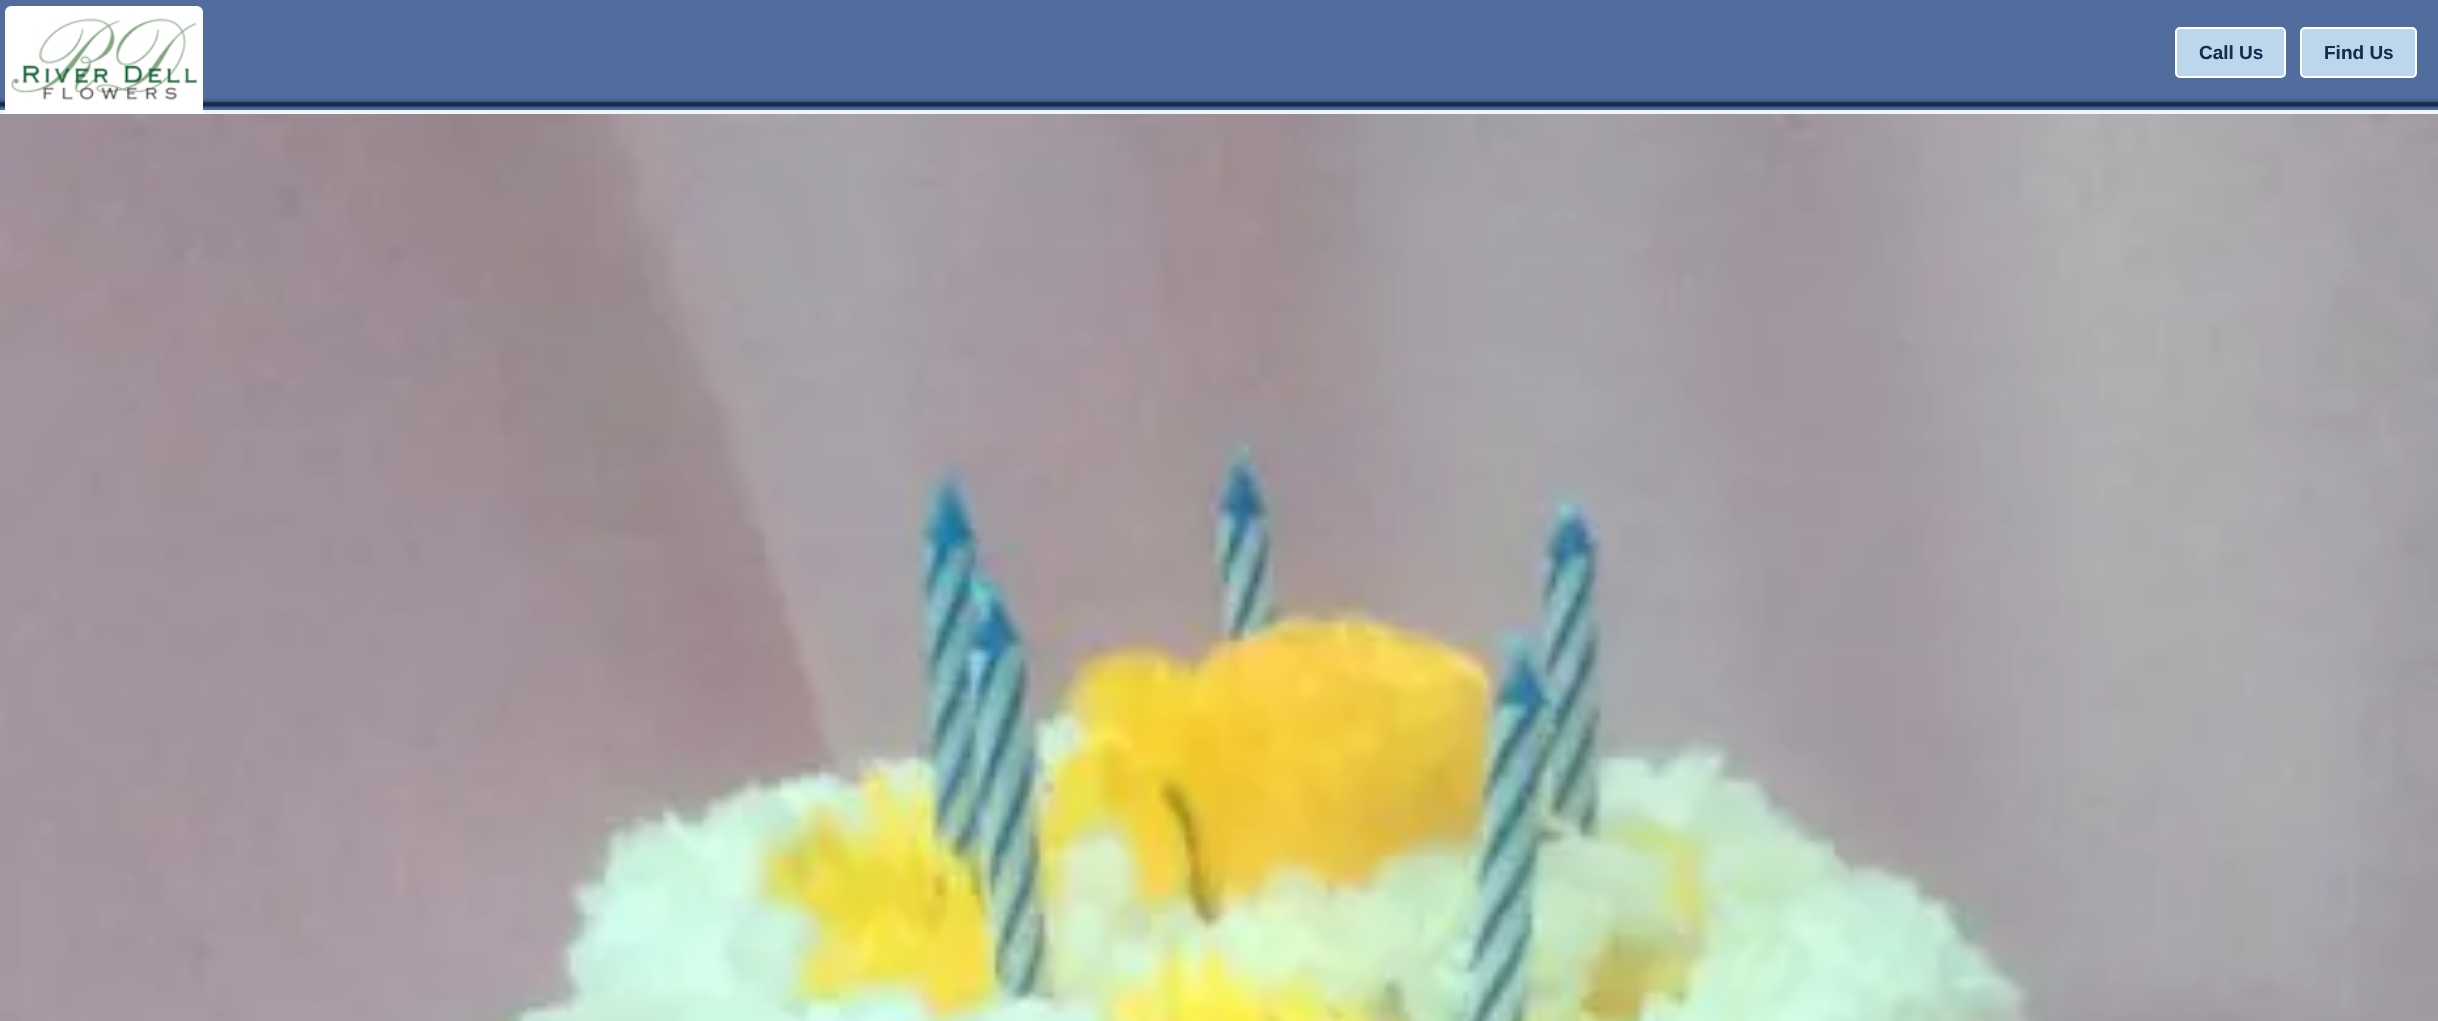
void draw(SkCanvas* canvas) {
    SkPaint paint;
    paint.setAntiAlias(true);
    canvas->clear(0xFFF0F6FB);
    paint.setColor(0xFF506D9D);
    canvas->drawRect(SkRect::MakeXYWH(0, 0, 2438, 110), paint);
    canvas->drawImageRect(SkImages::DeferredFromEncodedData(SkData::MakeFromFileName("img1.png")), SkRect::MakeXYWH(0, 98, 2438, 10), SkSamplingOptions());
    paint.setColor(0xFFFFFFFF);
    canvas->drawPath(SkPathBuilder().moveTo(11, 9).lineTo(197, 9).cubicTo(198.5f, 9, 200, 10.5f, 200, 12).lineTo(200, 111).lineTo(8, 111).lineTo(8, 12).cubicTo(8, 10.5f, 9.5f, 9, 11, 9).close().detach(), paint);
    paint.setStyle(SkPaint::kStroke_Style);
    paint.setStrokeWidth(6);
    canvas->drawPath(SkPathBuilder().moveTo(11, 9).lineTo(197, 9).cubicTo(198.5f, 9, 200, 10.5f, 200, 12).lineTo(200, 111).lineTo(8, 111).lineTo(8, 12).cubicTo(8, 10.5f, 9.5f, 9, 11, 9).close().detach(), paint);
    canvas->drawImageRect(SkImages::DeferredFromEncodedData(SkData::MakeFromFileName("img2.png")), SkRect::MakeXYWH(10, 18, 187, 83), SkSamplingOptions());
    paint.setStyle(SkPaint::kFill_Style);
    paint.setColor(0xFFBCD7EC);
    canvas->drawRoundRect(SkRect::MakeXYWH(2176, 28, 109, 49), 4, 4, paint);
    paint.setStyle(SkPaint::kStroke_Style);
    paint.setStrokeWidth(2);
    paint.setColor(0xFFFFFFFF);
    canvas->drawRoundRect(SkRect::MakeXYWH(2176, 28, 109, 49), 4, 4, paint);
    SkFont font1(fontMgr->matchFamilyStyle("Liberation Sans", SkFontStyle::Bold()), 19);
    font1.setSubpixel(true);
    paint.setStyle(SkPaint::kFill_Style);
    paint.setColor(0xFF142D50);
    canvas->drawString("Call Us", 2199, 59, font1, paint);
    paint.setColor(0xFFBCD7EC);
    canvas->drawRoundRect(SkRect::MakeXYWH(2301, 28, 115, 49), 4, 4, paint);
    paint.setStyle(SkPaint::kStroke_Style);
    paint.setColor(0xFFFFFFFF);
    canvas->drawRoundRect(SkRect::MakeXYWH(2301, 28, 115, 49), 4, 4, paint);
    paint.setStyle(SkPaint::kFill_Style);
    paint.setColor(0xFF142D50);
    canvas->drawString("Find Us", 2324, 59, font1, paint);
    canvas->drawImageRect(SkImages::DeferredFromEncodedData(SkData::MakeFromFileName("img3.png")), SkRect::MakeXYWH(0, 114, 2438, 907), SkSamplingOptions());
}
